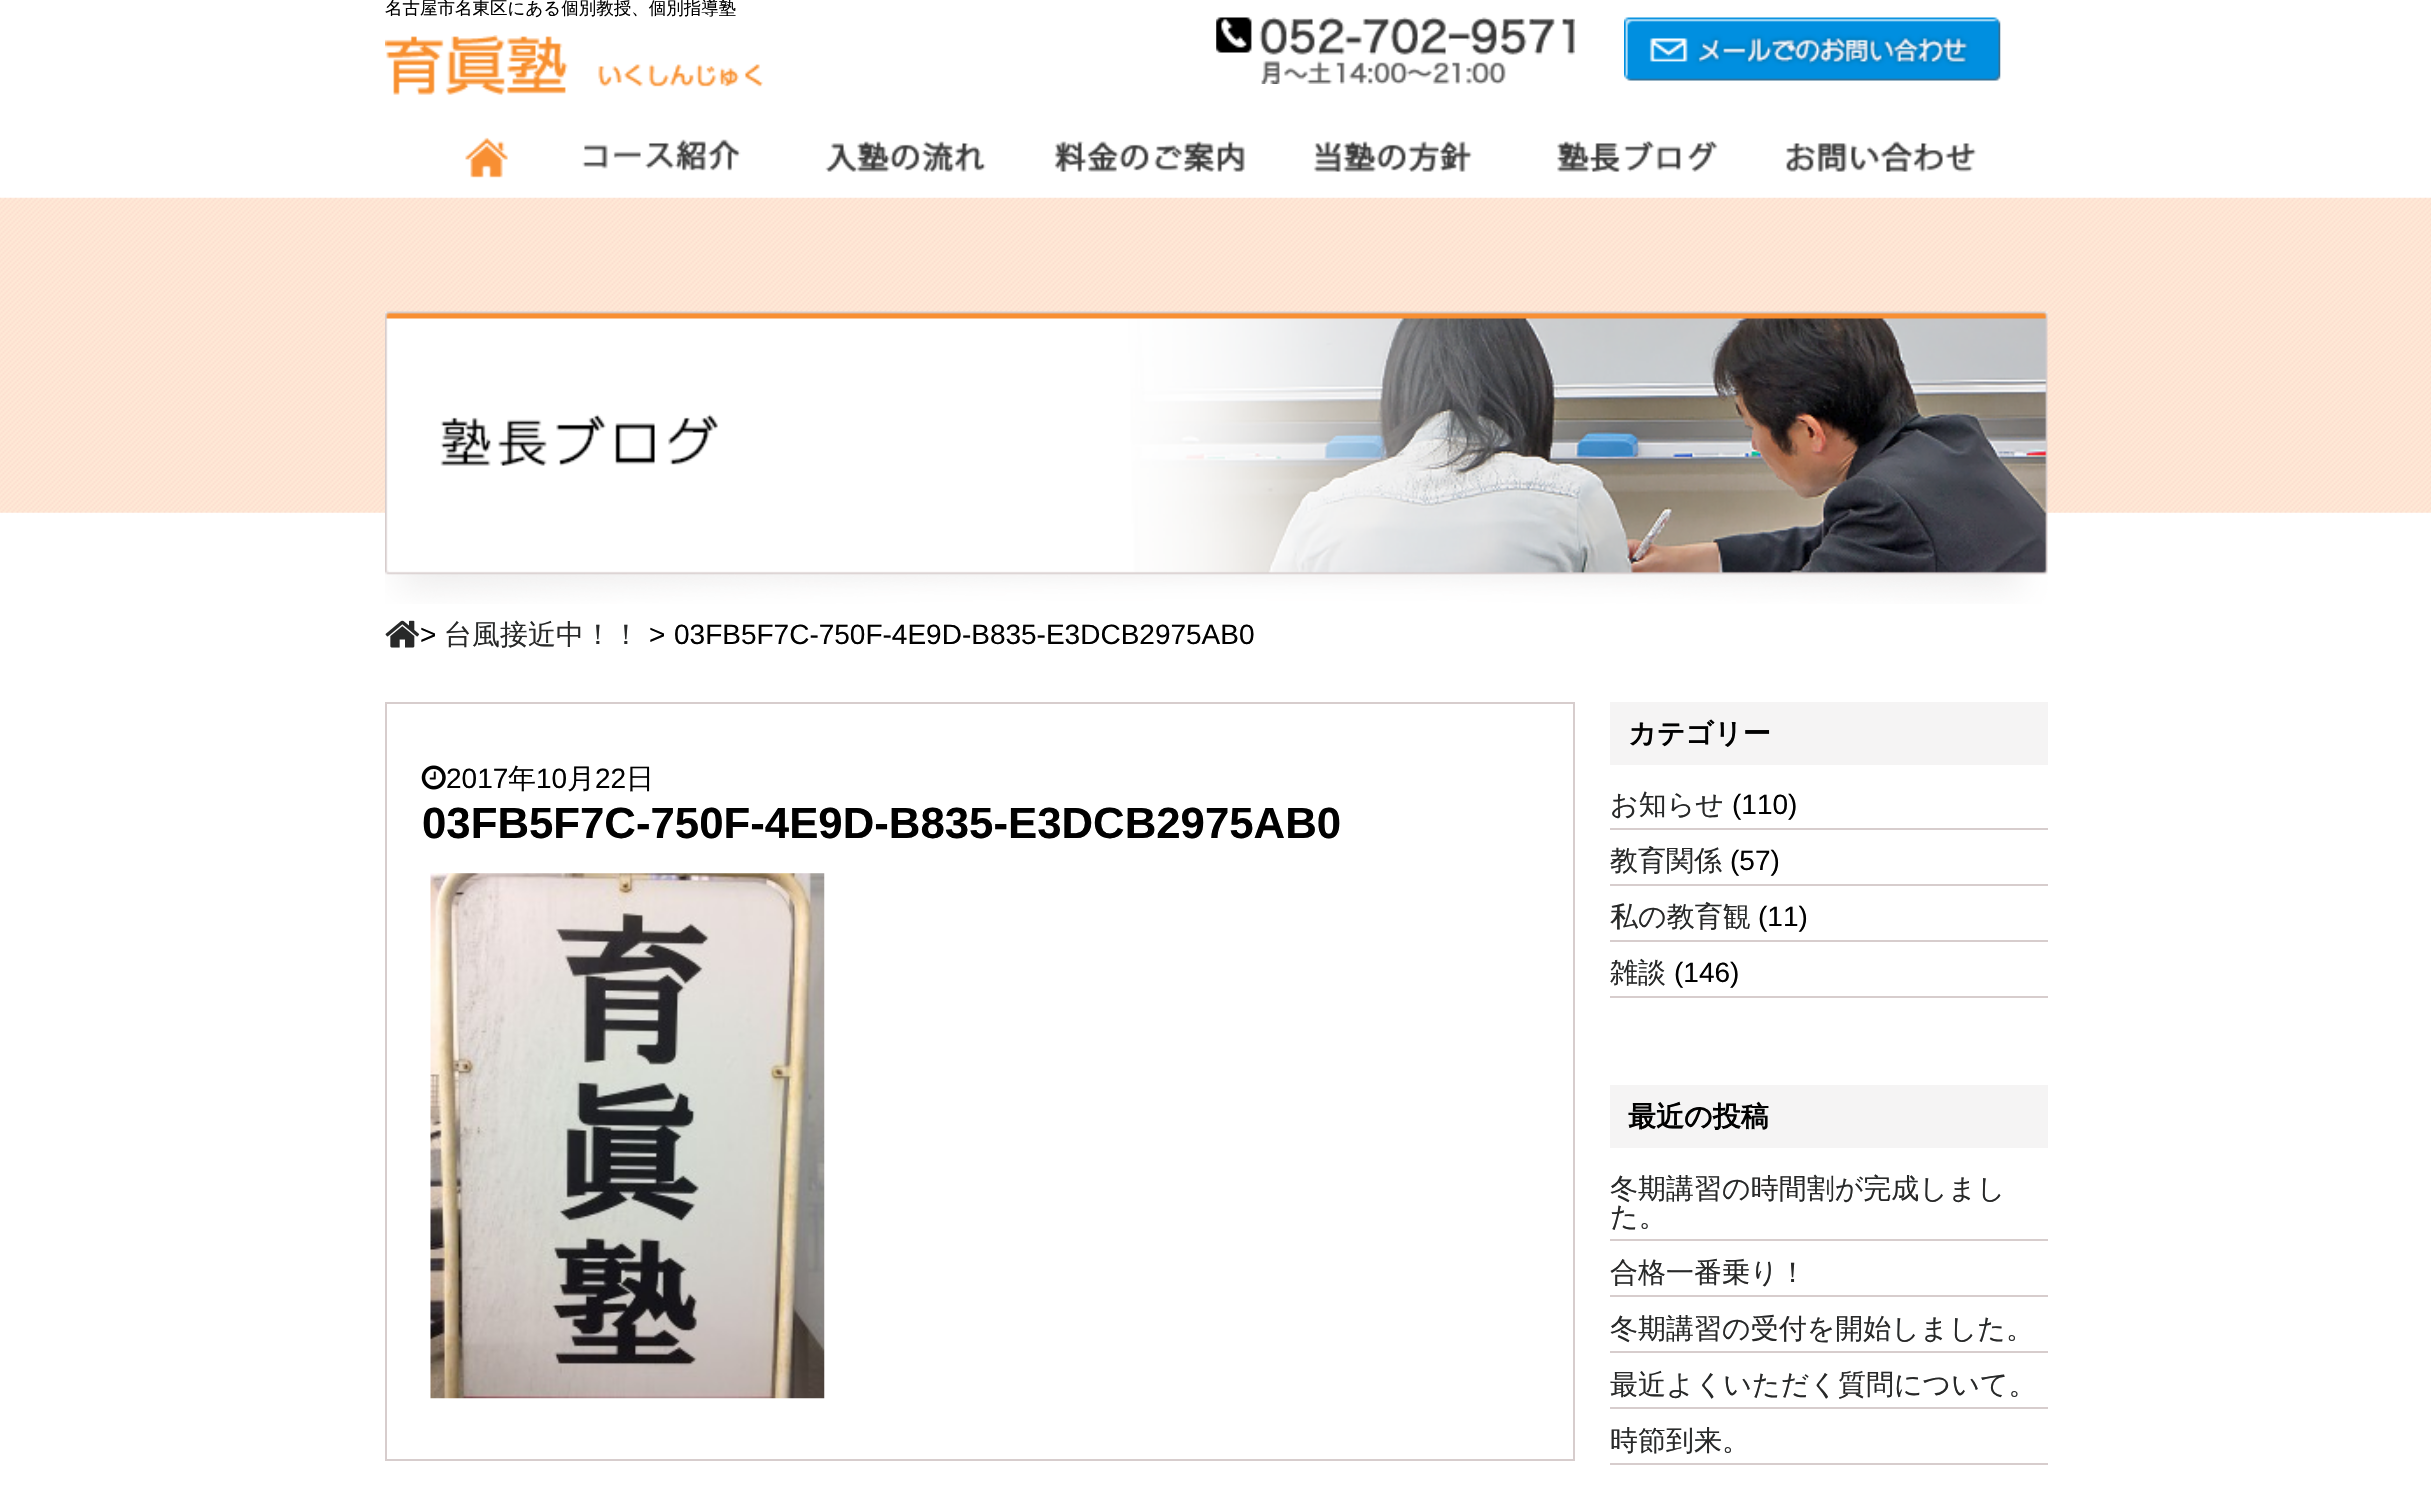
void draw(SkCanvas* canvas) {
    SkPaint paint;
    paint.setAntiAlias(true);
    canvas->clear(0xFFFFFFFF);
    SkFont font1(fontMgr->matchFamilyStyle("WenQuanYi Zen Hei", SkFontStyle(500, SkFontStyle::kNormal_Width, SkFontStyle::kUpright_Slant)), 17.5f);
    font1.setSubpixel(true);
    paint.setColor(0xFF010101);
    canvas->drawString("名古屋市名東区にある個別教授、個別指導塾", 385, 14, font1, paint);
    canvas->drawImageRect(SkImages::DeferredFromEncodedData(SkData::MakeFromFileName("img1.png")), SkRect::MakeXYWH(385, 35, 378, 60), SkSamplingOptions());
    canvas->drawImageRect(SkImages::DeferredFromEncodedData(SkData::MakeFromFileName("img2.png")), SkRect::MakeXYWH(1216, 17, 359, 67), SkSamplingOptions());
    canvas->drawImageRect(SkImages::DeferredFromEncodedData(SkData::MakeFromFileName("img3.png")), SkRect::MakeXYWH(1624, 17, 377, 64), SkSamplingOptions());
    canvas->drawImageRect(SkImages::DeferredFromEncodedData(SkData::MakeFromFileName("img4.png")), SkRect::MakeXYWH(465, 137, 43, 41), SkSamplingOptions());
    canvas->drawImageRect(SkImages::DeferredFromEncodedData(SkData::MakeFromFileName("img5.png")), SkRect::MakeXYWH(582, 139, 159, 32), SkSamplingOptions());
    canvas->drawImageRect(SkImages::DeferredFromEncodedData(SkData::MakeFromFileName("img6.png")), SkRect::MakeXYWH(825, 141, 161, 31), SkSamplingOptions());
    canvas->drawImageRect(SkImages::DeferredFromEncodedData(SkData::MakeFromFileName("img7.png")), SkRect::MakeXYWH(1054, 141, 191, 31), SkSamplingOptions());
    canvas->drawImageRect(SkImages::DeferredFromEncodedData(SkData::MakeFromFileName("img8.png")), SkRect::MakeXYWH(1313, 141, 159, 31), SkSamplingOptions());
    canvas->drawImageRect(SkImages::DeferredFromEncodedData(SkData::MakeFromFileName("img9.png")), SkRect::MakeXYWH(1557, 140, 161, 32), SkSamplingOptions());
    canvas->drawImageRect(SkImages::DeferredFromEncodedData(SkData::MakeFromFileName("img10.png")), SkRect::MakeXYWH(1786, 141, 191, 31), SkSamplingOptions());
    canvas->drawImageRect(SkImages::DeferredFromEncodedData(SkData::MakeFromFileName("img11.png")), SkRect::MakeXYWH(0, 197, 2431, 316), SkSamplingOptions());
    canvas->drawImageRect(SkImages::DeferredFromEncodedData(SkData::MakeFromFileName("img12.png")), SkRect::MakeXYWH(385, 311, 1663, 293), SkSamplingOptions());
    canvas->drawImageRect(SkImages::DeferredFromEncodedData(SkData::MakeFromFileName("img13.png")), SkRect::MakeXYWH(385, 620, 35, 28), SkSamplingOptions());
    SkFont font2(fontMgr->matchFamilyStyle("Liberation Sans", SkFontStyle::Normal()), 28);
    font2.setSubpixel(true);
    canvas->drawString(">", 420, 644, font2, paint);
    SkFont font3(fontMgr->matchFamilyStyle("WenQuanYi Zen Hei", SkFontStyle(500, SkFontStyle::kNormal_Width, SkFontStyle::kUpright_Slant)), 28);
    font3.setSubpixel(true);
    paint.setColor(0xFF282929);
    canvas->drawString("台風接近中！！", 444, 644, font3, paint);
    paint.setColor(0xFF010101);
    canvas->drawString(">", 649, 644, font2, paint);
    canvas->drawString("03FB5F7C-750F-4E9D-B835-E3DCB2975AB0", 674, 644, font2, paint);
    paint.setStyle(SkPaint::kStroke_Style);
    paint.setStrokeWidth(2);
    paint.setColor(0xFFD7CDCD);
    canvas->drawRect(SkRect::MakeXYWH(386, 703, 1188, 757), paint);
    canvas->drawImageRect(SkImages::DeferredFromEncodedData(SkData::MakeFromFileName("img14.png")), SkRect::MakeXYWH(421, 765, 25, 25), SkSamplingOptions());
    paint.setStyle(SkPaint::kFill_Style);
    paint.setColor(0xFF010101);
    canvas->drawString("2017", 446, 788, font2, paint);
    canvas->drawString("年", 508, 788, font3, paint);
    canvas->drawString("10", 536, 788, font2, paint);
    canvas->drawString("月", 567, 788, font3, paint);
    canvas->drawString("22", 595, 788, font2, paint);
    canvas->drawString("日", 626, 788, font3, paint);
    SkFont font4(fontMgr->matchFamilyStyle("Liberation Sans", SkFontStyle::Bold()), 43.75f);
    font4.setSubpixel(true);
    canvas->drawString("03FB5F7C-750F-4E9D-B835-E3DCB2975AB0", 422, 838, font4, paint);
    canvas->drawImageRect(SkImages::DeferredFromEncodedData(SkData::MakeFromFileName("img15.png")), SkRect::MakeXYWH(430, 873, 395, 526), SkSamplingOptions());
    paint.setColor(0xFFF5F4F4);
    canvas->drawRect(SkRect::MakeXYWH(1610, 702, 438, 63), paint);
    SkFont font5(fontMgr->matchFamilyStyle("WenQuanYi Zen Hei", SkFontStyle::Bold()), 28);
    font5.setSubpixel(true);
    paint.setColor(0xFF010101);
    canvas->drawString("カテゴリー", 1628, 743, font5, paint);
    paint.setColor(0xFFD7CDCD);
    canvas->drawRect(SkRect::MakeXYWH(1610, 828, 438, 2), paint);
    paint.setColor(0xFF282929);
    canvas->drawString("お知らせ", 1610, 814, font3, paint);
    paint.setColor(0xFF010101);
    canvas->drawString("(110)", 1732, 814, font2, paint);
    paint.setColor(0xFFD7CDCD);
    canvas->drawRect(SkRect::MakeXYWH(1610, 884, 438, 2), paint);
    paint.setColor(0xFF282929);
    canvas->drawString("教育関係", 1610, 870, font3, paint);
    paint.setColor(0xFF010101);
    canvas->drawString("(57)", 1730, 870, font2, paint);
    paint.setColor(0xFFD7CDCD);
    canvas->drawRect(SkRect::MakeXYWH(1610, 940, 438, 2), paint);
    paint.setColor(0xFF282929);
    canvas->drawString("私の教育観", 1610, 926, font3, paint);
    paint.setColor(0xFF010101);
    canvas->drawString("(11)", 1758, 926, font2, paint);
    paint.setColor(0xFFD7CDCD);
    canvas->drawRect(SkRect::MakeXYWH(1610, 996, 438, 2), paint);
    paint.setColor(0xFF282929);
    canvas->drawString("雑談", 1610, 982, font3, paint);
    paint.setColor(0xFF010101);
    canvas->drawString("(146)", 1674, 982, font2, paint);
    paint.setColor(0xFFF5F4F4);
    canvas->drawRect(SkRect::MakeXYWH(1610, 1085, 438, 63), paint);
    paint.setColor(0xFF010101);
    canvas->drawString("最近の投稿", 1628, 1126, font5, paint);
    paint.setColor(0xFFD7CDCD);
    canvas->drawRect(SkRect::MakeXYWH(1610, 1239, 438, 2), paint);
    paint.setColor(0xFF282929);
    canvas->drawString("冬期講習の時間割が完成しまし", 1610, 1198, font3, paint);
    canvas->drawString("た。", 1610, 1226, font3, paint);
    paint.setColor(0xFFD7CDCD);
    canvas->drawRect(SkRect::MakeXYWH(1610, 1295, 438, 2), paint);
    paint.setColor(0xFF282929);
    canvas->drawString("合格一番乗り！", 1610, 1282, font3, paint);
    paint.setColor(0xFFD7CDCD);
    canvas->drawRect(SkRect::MakeXYWH(1610, 1351, 438, 2), paint);
    paint.setColor(0xFF282929);
    canvas->drawString("冬期講習の受付を開始しました。", 1610, 1338, font3, paint);
    paint.setColor(0xFFD7CDCD);
    canvas->drawRect(SkRect::MakeXYWH(1610, 1407, 438, 2), paint);
    paint.setColor(0xFF282929);
    canvas->drawString("最近よくいただく質問について。", 1610, 1394, font3, paint);
    paint.setColor(0xFFD7CDCD);
    canvas->drawRect(SkRect::MakeXYWH(1610, 1463, 438, 2), paint);
    paint.setColor(0xFF282929);
    canvas->drawString("時節到来。", 1610, 1450, font3, paint);
}
